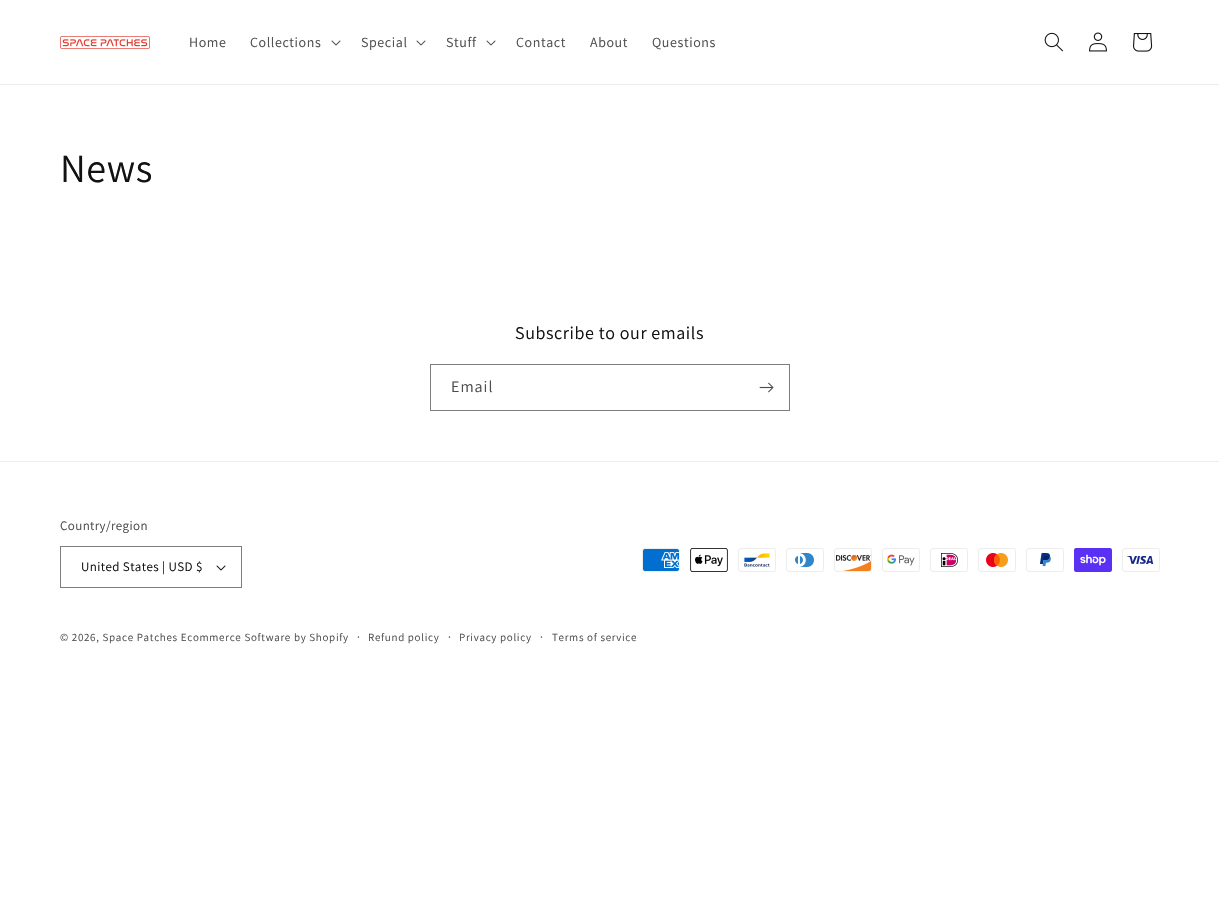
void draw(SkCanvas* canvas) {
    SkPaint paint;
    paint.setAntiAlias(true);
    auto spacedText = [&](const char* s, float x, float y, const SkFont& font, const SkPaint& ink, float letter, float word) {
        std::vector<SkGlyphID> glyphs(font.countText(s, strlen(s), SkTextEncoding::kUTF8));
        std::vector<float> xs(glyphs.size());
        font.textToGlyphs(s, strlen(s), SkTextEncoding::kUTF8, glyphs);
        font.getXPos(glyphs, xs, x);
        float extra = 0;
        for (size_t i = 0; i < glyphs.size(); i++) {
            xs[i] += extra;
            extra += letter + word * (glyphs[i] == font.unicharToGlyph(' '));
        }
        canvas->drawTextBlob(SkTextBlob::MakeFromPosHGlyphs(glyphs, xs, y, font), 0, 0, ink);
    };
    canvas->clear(0xFFFFFFFF);
    paint.setColor(0xFFECECEC);
    canvas->drawRect(SkRect::MakeXYWH(0, 84, 1219, 1), paint);
    canvas->drawImageRect(SkImages::DeferredFromEncodedData(SkData::MakeFromFileName("img1.png")), SkRect::MakeXYWH(60, 36, 90, 13), SkSamplingOptions());
    SkFont font1(fontMgr->matchFamilyStyle("Assistant", SkFontStyle::Normal()), 14);
    font1.setSubpixel(true);
    paint.setColor(0xFF4D4D4D);
    spacedText("Home", 189, 47, font1, paint, 0.6f, 0);
    spacedText("Collections", 250, 47, font1, paint, 0.6f, 0);
    canvas->drawImageRect(SkImages::DeferredFromEncodedData(SkData::MakeFromFileName("img2.png")), SkRect::MakeXYWH(331, 40, 10, 6), SkSamplingOptions());
    spacedText("Special", 361, 47, font1, paint, 0.6f, 0);
    canvas->drawImageRect(SkImages::DeferredFromEncodedData(SkData::MakeFromFileName("img2.png")), SkRect::MakeXYWH(416, 40, 10, 6), SkSamplingOptions());
    spacedText("Stuff", 446, 47, font1, paint, 0.6f, 0);
    canvas->drawImageRect(SkImages::DeferredFromEncodedData(SkData::MakeFromFileName("img2.png")), SkRect::MakeXYWH(486, 40, 10, 6), SkSamplingOptions());
    spacedText("Contact", 516, 47, font1, paint, 0.6f, 0);
    spacedText("About", 590, 47, font1, paint, 0.6f, 0);
    spacedText("Questions", 652, 47, font1, paint, 0.6f, 0);
    canvas->drawImageRect(SkImages::DeferredFromEncodedData(SkData::MakeFromFileName("img3.png")), SkRect::MakeXYWH(1044, 32, 19, 20), SkSamplingOptions());
    canvas->drawImageRect(SkImages::DeferredFromEncodedData(SkData::MakeFromFileName("img4.png")), SkRect::MakeXYWH(1089, 32, 18, 20), SkSamplingOptions());
    canvas->drawImageRect(SkImages::DeferredFromEncodedData(SkData::MakeFromFileName("img5.png")), SkRect::MakeXYWH(1133, 33, 20, 19), SkSamplingOptions());
    SkFont font2(fontMgr->matchFamilyStyle("Assistant", SkFontStyle::Normal()), 40);
    font2.setSubpixel(true);
    paint.setColor(0xFF121212);
    spacedText("News", 60, 182, font2, paint, 0.6f, 0);
    SkFont font3(fontMgr->matchFamilyStyle("Assistant", SkFontStyle::Normal()), 18);
    font3.setSubpixel(true);
    spacedText("Subscribe to our emails", 515, 339, font3, paint, 0.6f, 0);
    paint.setStyle(SkPaint::kStroke_Style);
    paint.setStrokeWidth(1);
    paint.setColor(0xFF7D7D7D);
    canvas->drawRect(SkRect::MakeXYWH(430.5f, 364.5f, 359, 46), paint);
    SkFont font4(fontMgr->matchFamilyStyle("Assistant", SkFontStyle::Normal()), 16);
    font4.setSubpixel(true);
    paint.setStyle(SkPaint::kFill_Style);
    paint.setColor(0xFF4D4D4D);
    spacedText("Email", 451, 392, font4, paint, 1, 0);
    canvas->drawImageRect(SkImages::DeferredFromEncodedData(SkData::MakeFromFileName("img6.png")), SkRect::MakeXYWH(759, 382, 15, 11), SkSamplingOptions());
    paint.setColor(0xFFECECEC);
    canvas->drawRect(SkRect::MakeXYWH(0, 461, 1219, 1), paint);
    SkFont font5(fontMgr->matchFamilyStyle("Assistant", SkFontStyle::Normal()), 13);
    font5.setSubpixel(true);
    paint.setColor(0xFF4D4D4D);
    spacedText("Country/region", 60, 530, font5, paint, 0.4f, 0);
    canvas->drawImageRect(SkImages::DeferredFromEncodedData(SkData::MakeFromFileName("img7.png")), SkRect::MakeXYWH(216, 565, 10, 6), SkSamplingOptions());
    paint.setStyle(SkPaint::kStroke_Style);
    paint.setColor(0xFF7D7D7D);
    canvas->drawRect(SkRect::MakeXYWH(60.5f, 546.5f, 181, 41), paint);
    paint.setStyle(SkPaint::kFill_Style);
    paint.setColor(0xFF121212);
    spacedText("United States | USD $", 81, 571, font5, paint, 0.4f, 0);
    canvas->drawImageRect(SkImages::DeferredFromEncodedData(SkData::MakeFromFileName("img8.png")), SkRect::MakeXYWH(642, 548, 38, 24), SkSamplingOptions());
    canvas->drawImageRect(SkImages::DeferredFromEncodedData(SkData::MakeFromFileName("img9.png")), SkRect::MakeXYWH(690, 548, 38, 24), SkSamplingOptions());
    canvas->drawImageRect(SkImages::DeferredFromEncodedData(SkData::MakeFromFileName("img10.png")), SkRect::MakeXYWH(738, 548, 38, 24), SkSamplingOptions());
    canvas->drawImageRect(SkImages::DeferredFromEncodedData(SkData::MakeFromFileName("img11.png")), SkRect::MakeXYWH(786, 548, 38, 24), SkSamplingOptions());
    canvas->drawImageRect(SkImages::DeferredFromEncodedData(SkData::MakeFromFileName("img12.png")), SkRect::MakeXYWH(834, 548, 38, 24), SkSamplingOptions());
    canvas->drawImageRect(SkImages::DeferredFromEncodedData(SkData::MakeFromFileName("img13.png")), SkRect::MakeXYWH(882, 548, 38, 24), SkSamplingOptions());
    canvas->drawImageRect(SkImages::DeferredFromEncodedData(SkData::MakeFromFileName("img14.png")), SkRect::MakeXYWH(930, 548, 38, 24), SkSamplingOptions());
    canvas->drawImageRect(SkImages::DeferredFromEncodedData(SkData::MakeFromFileName("img15.png")), SkRect::MakeXYWH(978, 548, 38, 24), SkSamplingOptions());
    canvas->drawImageRect(SkImages::DeferredFromEncodedData(SkData::MakeFromFileName("img16.png")), SkRect::MakeXYWH(1026, 548, 38, 24), SkSamplingOptions());
    canvas->drawImageRect(SkImages::DeferredFromEncodedData(SkData::MakeFromFileName("img17.png")), SkRect::MakeXYWH(1074, 548, 38, 24), SkSamplingOptions());
    canvas->drawImageRect(SkImages::DeferredFromEncodedData(SkData::MakeFromFileName("img18.png")), SkRect::MakeXYWH(1122, 548, 38, 24), SkSamplingOptions());
    SkFont font6(fontMgr->matchFamilyStyle("Assistant", SkFontStyle::Normal()), 11);
    font6.setSubpixel(true);
    paint.setColor(0xFF4D4D4D);
    spacedText("© 2026, Space Patches Ecommerce Software by Shopify", 60, 641, font6, paint, 0.7f, 0);
    SkFont font7(fontMgr->matchFamilyStyle("Assistant", SkFontStyle::Normal()), 12);
    font7.setSubpixel(true);
    spacedText("·", 357, 641, font7, paint, 0.7f, 0);
    spacedText("Refund policy", 368, 641, font6, paint, 0.7f, 0);
    spacedText("·", 448, 641, font7, paint, 0.7f, 0);
    spacedText("Privacy policy", 459, 641, font6, paint, 0.7f, 0);
    spacedText("·", 540, 641, font7, paint, 0.7f, 0);
    spacedText("Terms of service", 552, 641, font6, paint, 0.7f, 0);
}
